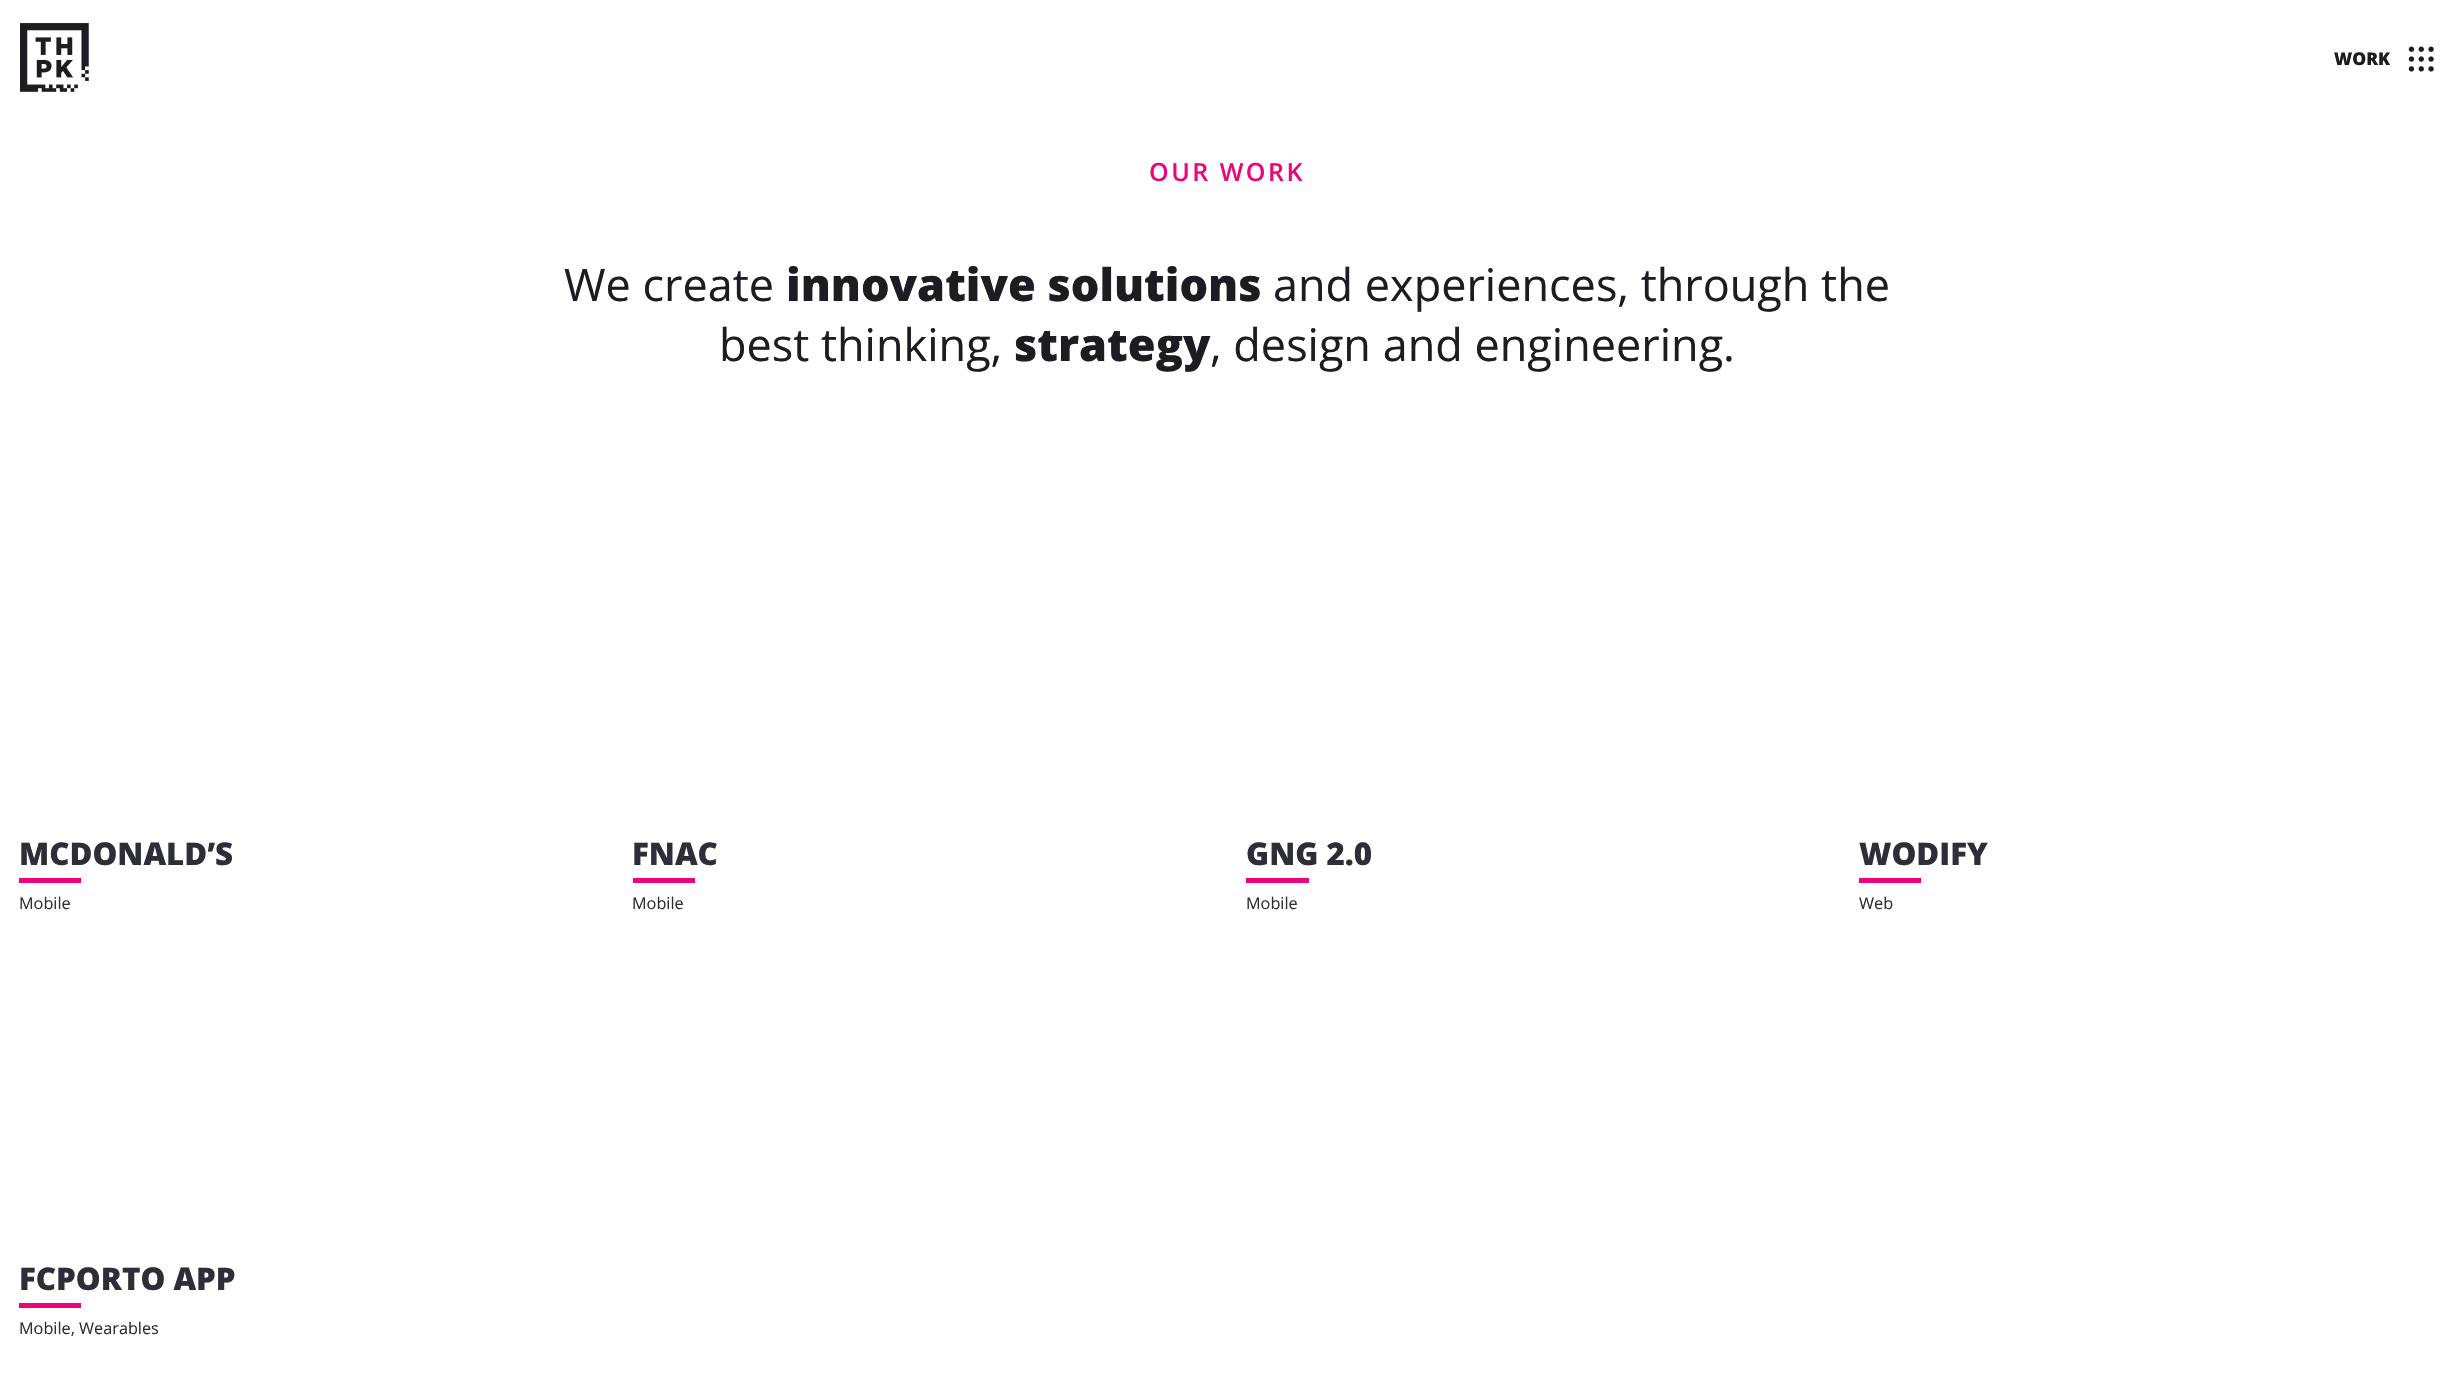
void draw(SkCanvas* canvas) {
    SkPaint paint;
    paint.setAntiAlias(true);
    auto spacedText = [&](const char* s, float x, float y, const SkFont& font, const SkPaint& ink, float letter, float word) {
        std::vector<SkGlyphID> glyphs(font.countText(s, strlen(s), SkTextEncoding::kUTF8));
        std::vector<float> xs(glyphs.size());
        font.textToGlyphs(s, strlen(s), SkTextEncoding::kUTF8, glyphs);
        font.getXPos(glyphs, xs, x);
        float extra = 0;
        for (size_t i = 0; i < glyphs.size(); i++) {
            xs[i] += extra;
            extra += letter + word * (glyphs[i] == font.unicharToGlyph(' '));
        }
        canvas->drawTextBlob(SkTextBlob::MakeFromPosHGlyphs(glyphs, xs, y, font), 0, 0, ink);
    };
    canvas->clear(0xFFFFFFFF);
    canvas->drawImageRect(SkImages::DeferredFromEncodedData(SkData::MakeFromFileName("img1.png")), SkRect::MakeXYWH(20, 23, 69, 69), SkSamplingOptions());
    SkFont font1(fontMgr->matchFamilyStyle("Open Sans", SkFontStyle(800, SkFontStyle::kNormal_Width, SkFontStyle::kUpright_Slant)), 17.5f);
    font1.setSubpixel(true);
    paint.setColor(0xFF1C1C22);
    canvas->drawString("WORK", 2334, 65, font1, paint);
    canvas->drawImageRect(SkImages::DeferredFromEncodedData(SkData::MakeFromFileName("img2.png")), SkRect::MakeXYWH(2408, 46, 26, 26), SkSamplingOptions());
    SkFont font2(fontMgr->matchFamilyStyle("Open Sans", SkFontStyle(600, SkFontStyle::kNormal_Width, SkFontStyle::kUpright_Slant)), 25);
    font2.setSubpixel(true);
    paint.setColor(0xFFED037C);
    spacedText("OUR WORK", 1149, 181, font2, paint, 2.5f, 0);
    SkFont font3(fontMgr->matchFamilyStyle("Open Sans", SkFontStyle::Normal()), 45);
    font3.setSubpixel(true);
    paint.setColor(0xFF1C1C22);
    canvas->drawString("We create", 564, 301, font3, paint);
    SkFont font4(fontMgr->matchFamilyStyle("Open Sans", SkFontStyle(800, SkFontStyle::kNormal_Width, SkFontStyle::kUpright_Slant)), 45);
    font4.setSubpixel(true);
    canvas->drawString("innovative solutions", 786, 301, font4, paint);
    canvas->drawString("and experiences, through the", 1273, 301, font3, paint);
    canvas->drawString("best thinking,", 719, 361, font3, paint);
    canvas->drawString("strategy", 1014, 361, font4, paint);
    canvas->drawString(", design and engineering.", 1210, 361, font3, paint);
    SkFont font5(fontMgr->matchFamilyStyle("Open Sans", SkFontStyle(800, SkFontStyle::kNormal_Width, SkFontStyle::kUpright_Slant)), 31.25f);
    font5.setSubpixel(true);
    paint.setColor(0xFF2E2E38);
    canvas->drawString("MCDONALD’S", 19, 865, font5, paint);
    paint.setColor(0xFFED037C);
    canvas->drawRect(SkRect::MakeXYWH(19, 878, 62, 5), paint);
    SkFont font6(fontMgr->matchFamilyStyle("Open Sans", SkFontStyle::Normal()), 16.25f);
    font6.setSubpixel(true);
    paint.setColor(0xFF2E2E38);
    canvas->drawString("Mobile", 19, 909, font6, paint);
    canvas->drawString("FNAC", 632, 865, font5, paint);
    paint.setColor(0xFFED037C);
    canvas->drawRect(SkRect::MakeXYWH(633, 878, 62, 5), paint);
    paint.setColor(0xFF2E2E38);
    canvas->drawString("Mobile", 632, 909, font6, paint);
    canvas->drawString("GNG 2.0", 1246, 865, font5, paint);
    paint.setColor(0xFFED037C);
    canvas->drawRect(SkRect::MakeXYWH(1246, 878, 63, 5), paint);
    paint.setColor(0xFF2E2E38);
    canvas->drawString("Mobile", 1246, 909, font6, paint);
    canvas->drawString("WODIFY", 1859, 865, font5, paint);
    paint.setColor(0xFFED037C);
    canvas->drawRect(SkRect::MakeXYWH(1859, 878, 62, 5), paint);
    paint.setColor(0xFF2E2E38);
    canvas->drawString("Web", 1859, 909, font6, paint);
    canvas->drawString("FCPORTO APP", 19, 1290, font5, paint);
    paint.setColor(0xFFED037C);
    canvas->drawRect(SkRect::MakeXYWH(19, 1303, 62, 5), paint);
    paint.setColor(0xFF2E2E38);
    canvas->drawString("Mobile, Wearables", 19, 1334, font6, paint);
}
